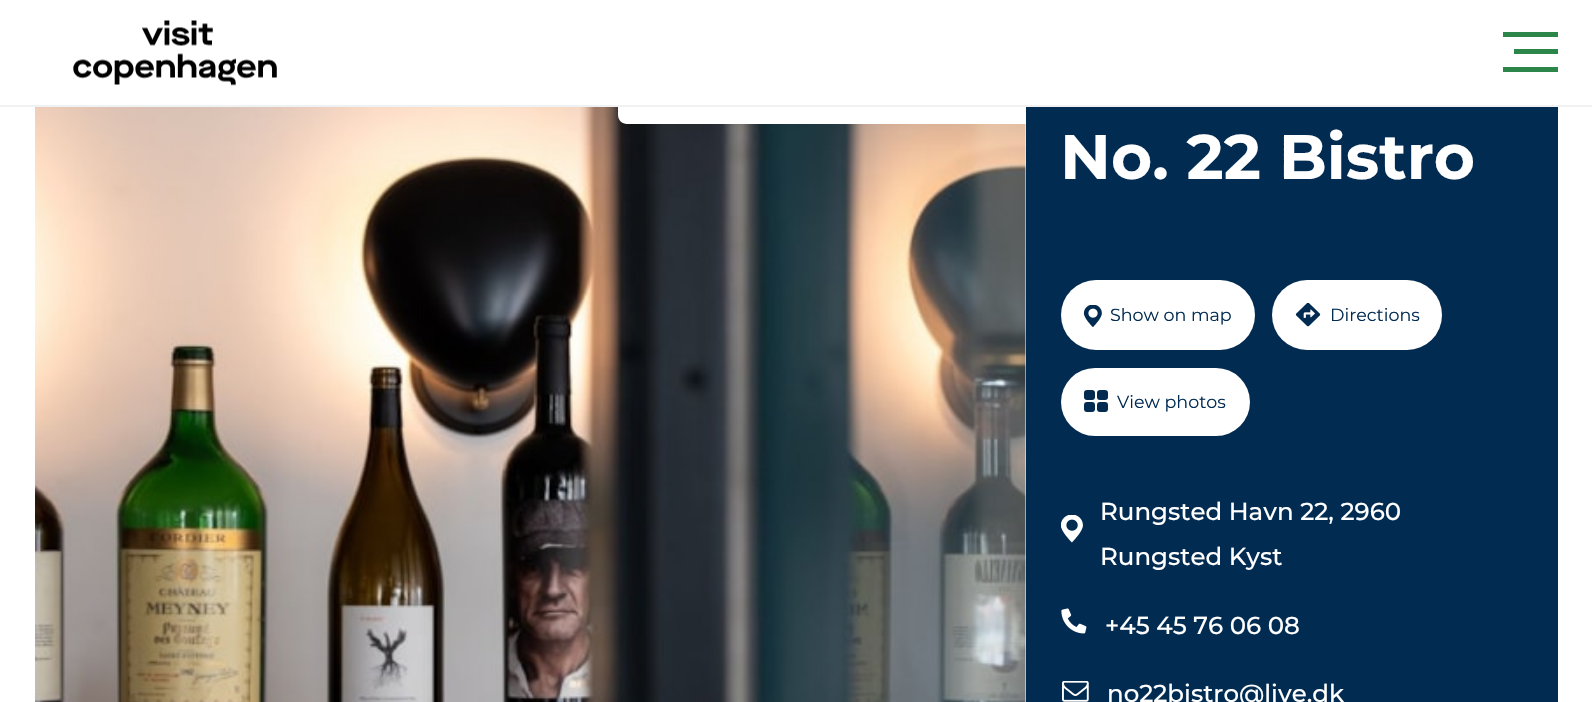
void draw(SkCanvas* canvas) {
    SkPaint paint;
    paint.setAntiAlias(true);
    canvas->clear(0xFFFFFFFF);
    canvas->drawImageRect(SkImages::DeferredFromEncodedData(SkData::MakeFromFileName("img2.png")), SkRect::MakeXYWH(35, 107, 991, 595), SkSamplingOptions());
    paint.setColor(0xFFFFFFFF);
    canvas->drawPath(SkPathBuilder().moveTo(618, 75).lineTo(1026, 75).lineTo(1026, 124).lineTo(627, 124).cubicTo(622, 124, 618, 120, 618, 115).close().detach(), paint);
    paint.setColor(0xFFF0F1F3);
    canvas->drawRect(SkRect::MakeXYWH(0, 105, 1592, 2), paint);
    canvas->drawImageRect(SkImages::DeferredFromEncodedData(SkData::MakeFromFileName("img1.png")), SkRect::MakeXYWH(73, 20, 204, 66), SkSamplingOptions());
    paint.setColor(0xFF2D8649);
    canvas->drawRect(SkRect::MakeXYWH(1503, 32, 55, 5), paint);
    canvas->drawRect(SkRect::MakeXYWH(1514, 49, 44, 5), paint);
    canvas->drawRect(SkRect::MakeXYWH(1503, 67, 55, 5), paint);
    paint.setColor(0xFF022B52);
    canvas->drawRect(SkRect::MakeXYWH(1026, 107, 532, 595), paint);
    SkFont font1(fontMgr->matchFamilyStyle("Montserrat", SkFontStyle::Bold()), 63);
    font1.setSubpixel(true);
    paint.setColor(0xFFFFFFFF);
    canvas->drawString("No. 22 Bistro", 1060, 179, font1, paint);
    canvas->drawRoundRect(SkRect::MakeXYWH(1061, 280, 194, 70), 35, 35, paint);
    canvas->drawImageRect(SkImages::DeferredFromEncodedData(SkData::MakeFromFileName("img3.png")), SkRect::MakeXYWH(1083, 305, 19, 22), SkSamplingOptions());
    SkFont font2(fontMgr->matchFamilyStyle("Montserrat", SkFontStyle::Normal()), 17.5f);
    font2.setSubpixel(true);
    paint.setColor(0xFF022B52);
    canvas->drawString("Show on map", 1110, 321, font2, paint);
    paint.setColor(0xFFFFFFFF);
    canvas->drawRoundRect(SkRect::MakeXYWH(1272, 280, 170, 70), 35, 35, paint);
    canvas->drawImageRect(SkImages::DeferredFromEncodedData(SkData::MakeFromFileName("img4.png")), SkRect::MakeXYWH(1295, 303, 26, 24), SkSamplingOptions());
    paint.setColor(0xFF022B52);
    canvas->drawString("Directions", 1330, 321, font2, paint);
    paint.setColor(0xFFFFFFFF);
    canvas->drawRoundRect(SkRect::MakeXYWH(1061, 368, 189, 68), 34, 34, paint);
    paint.setColor(0xFF022B52);
    canvas->drawRoundRect(SkRect::MakeXYWH(1097, 390, 11, 10), 3, 3, paint);
    canvas->drawRoundRect(SkRect::MakeXYWH(1097, 402, 11, 10), 3, 3, paint);
    canvas->drawRoundRect(SkRect::MakeXYWH(1084, 390, 11, 10), 3, 3, paint);
    canvas->drawRoundRect(SkRect::MakeXYWH(1084, 402, 11, 10), 3, 3, paint);
    canvas->drawString("View photos", 1117, 408, font2, paint);
    canvas->drawImageRect(SkImages::DeferredFromEncodedData(SkData::MakeFromFileName("img5.png")), SkRect::MakeXYWH(1061, 515, 22, 28), SkSamplingOptions());
    SkFont font3(fontMgr->matchFamilyStyle("Montserrat", SkFontStyle(500, SkFontStyle::kNormal_Width, SkFontStyle::kUpright_Slant)), 24.5f);
    font3.setSubpixel(true);
    paint.setColor(0xFFFFFFFF);
    canvas->drawString("Rungsted Havn 22, 2960", 1100, 520, font3, paint);
    canvas->drawString("Rungsted Kyst", 1100, 565, font3, paint);
    canvas->drawImageRect(SkImages::DeferredFromEncodedData(SkData::MakeFromFileName("img6.png")), SkRect::MakeXYWH(1061, 608, 26, 26), SkSamplingOptions());
    canvas->drawString("+45 45 76 06 08", 1105, 634, font3, paint);
    canvas->drawImageRect(SkImages::DeferredFromEncodedData(SkData::MakeFromFileName("img7.png")), SkRect::MakeXYWH(1062, 681, 27, 21), SkSamplingOptions());
    canvas->drawString("no22bistro@live.dk", 1107, 702, font3, paint);
}
